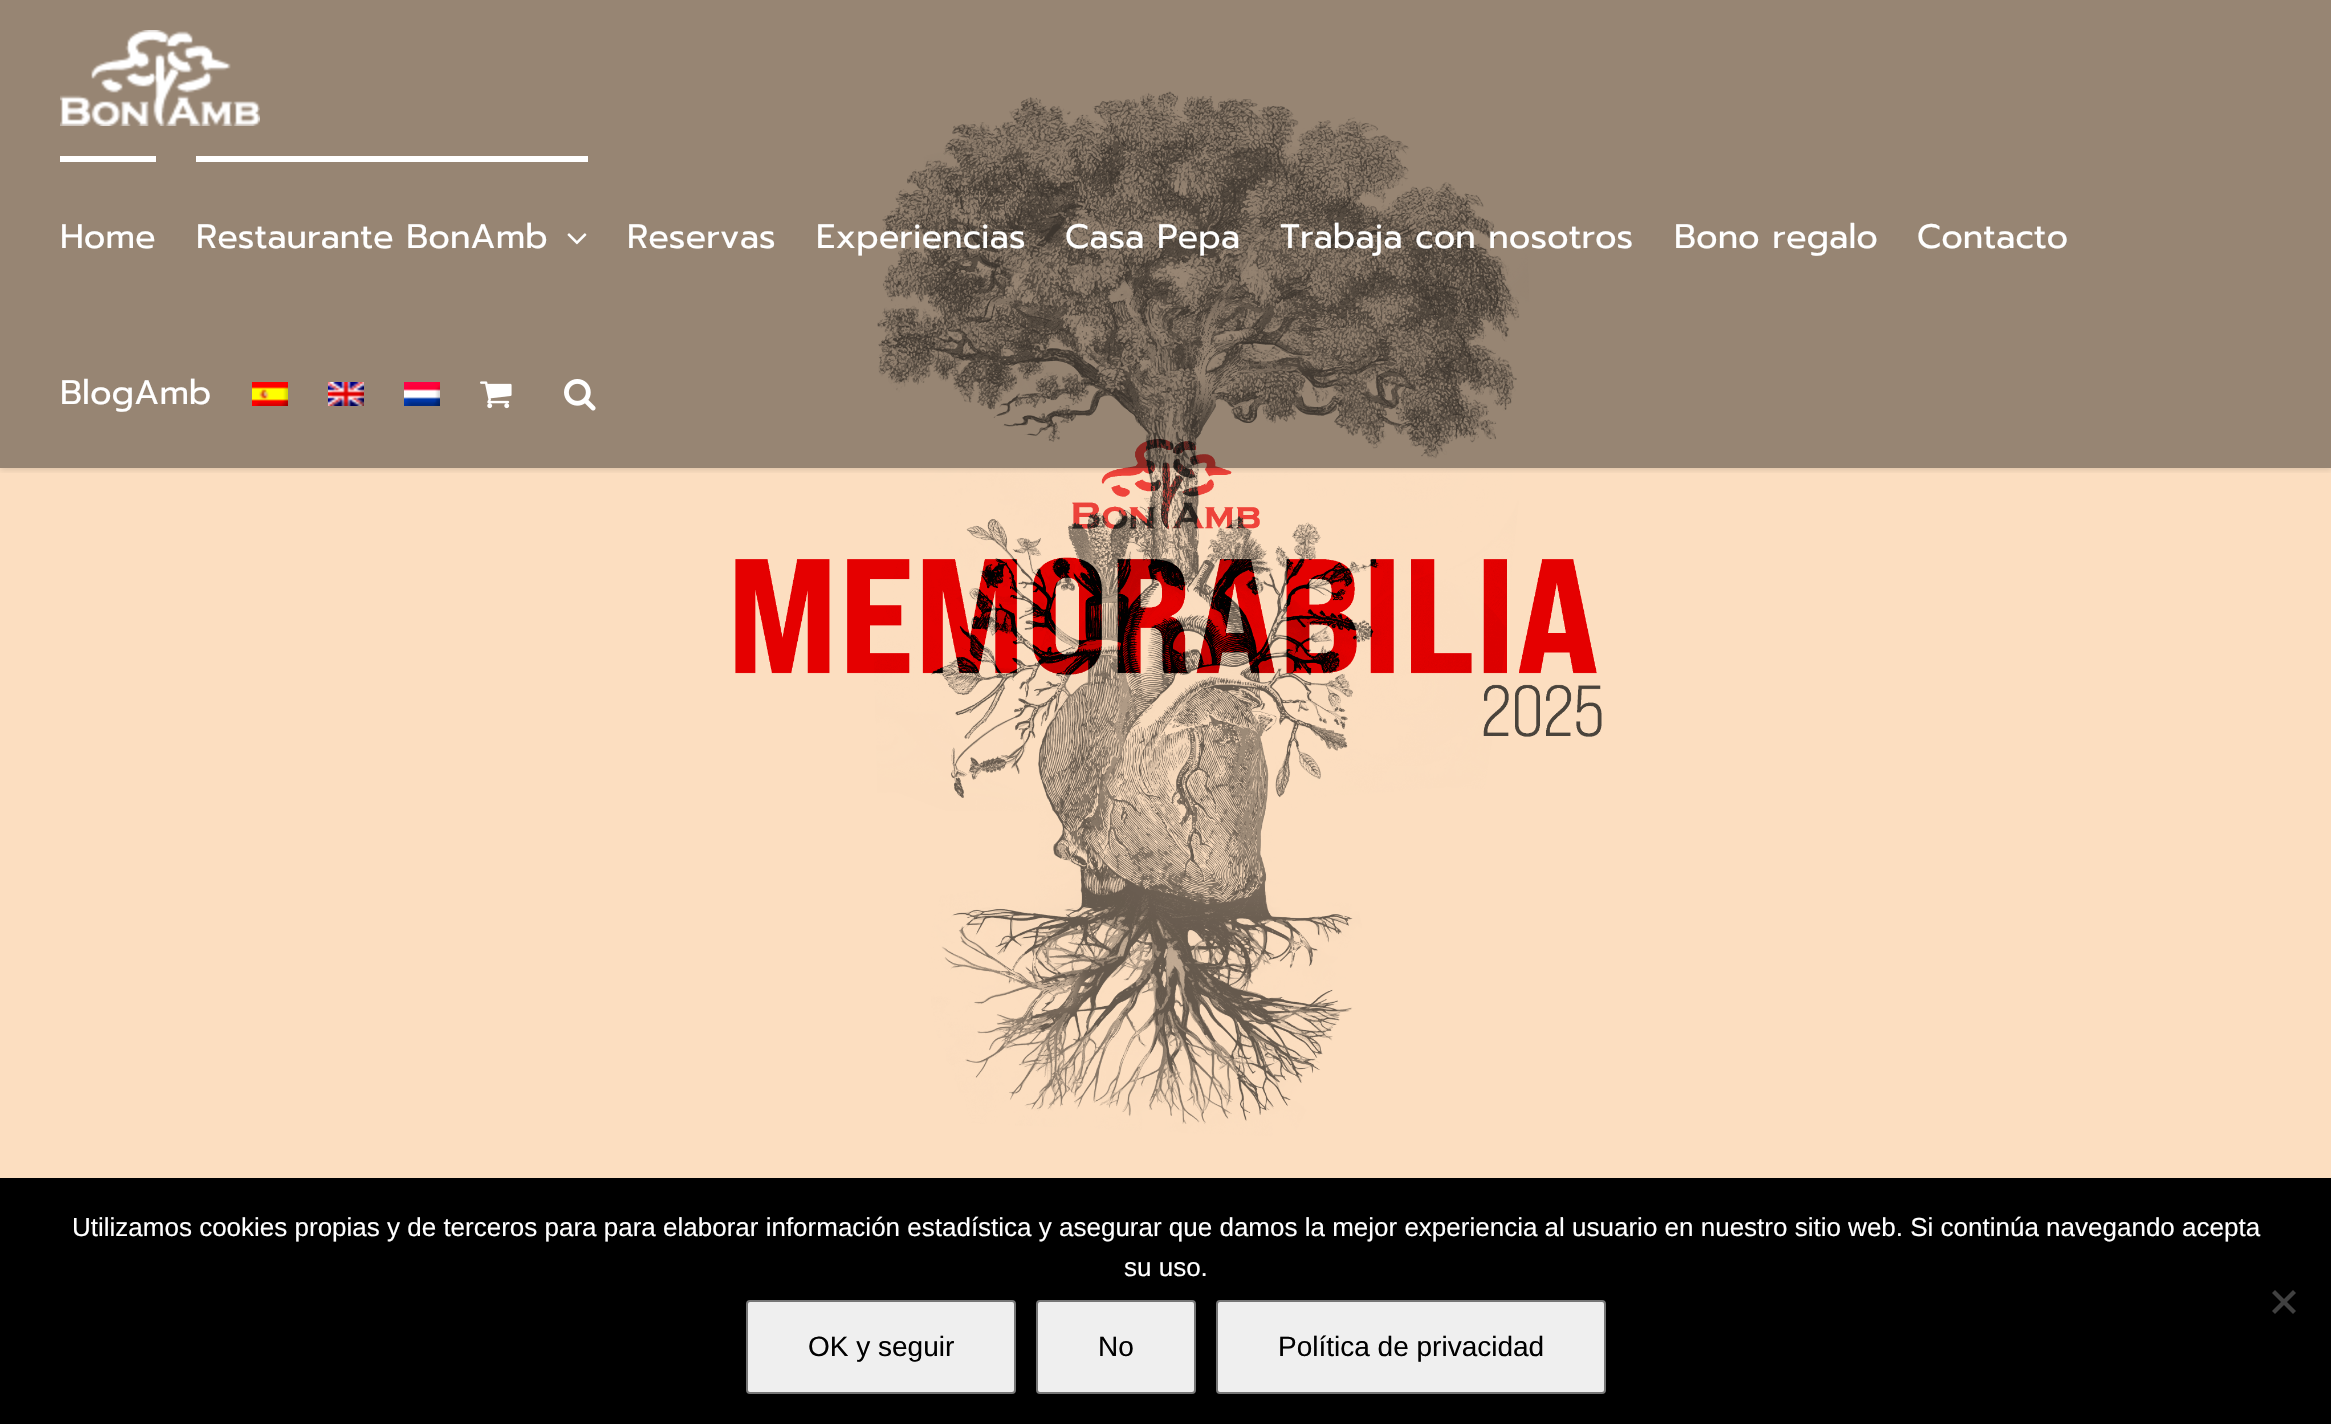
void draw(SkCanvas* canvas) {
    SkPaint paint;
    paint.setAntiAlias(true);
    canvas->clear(0xFFFFFFFF);
    canvas->drawImageRect(SkImages::DeferredFromEncodedData(SkData::MakeFromFileName("img1.png")), SkRect::MakeXYWH(0, 0, 2331, 1178), SkSamplingOptions());
    canvas->save();
    canvas->clipRect(SkRect::MakeXYWH(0, 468, 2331, 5));
    paint.setColor(0x1F000000);
    paint.setMaskFilter(SkMaskFilter::MakeBlur(kNormal_SkBlurStyle, 3));
    canvas->drawRect(SkRect::MakeXYWH(0, 2, 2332, 468), paint);
    paint.setMaskFilter(nullptr);
    canvas->restore();
    paint.setColor(0x66000000);
    canvas->drawRect(SkRect::MakeXYWH(0, 0, 2331, 468), paint);
    canvas->drawImageRect(SkImages::DeferredFromEncodedData(SkData::MakeFromFileName("img2.png")), SkRect::MakeXYWH(60, 30, 200, 96), SkSamplingOptions());
    paint.setColor(0xFFFFFFFF);
    canvas->drawRect(SkRect::MakeXYWH(60, 156, 96, 6), paint);
    SkFont font1(fontMgr->matchFamilyStyle("Prompt", SkFontStyle::Normal()), 34);
    font1.setSubpixel(true);
    canvas->drawString("Home", 60, 248, font1, paint);
    canvas->drawRect(SkRect::MakeXYWH(196, 156, 392, 6), paint);
    canvas->drawString("Restaurante BonAmb", 196, 248, font1, paint);
    canvas->drawImageRect(SkImages::DeferredFromEncodedData(SkData::MakeFromFileName("img3.png")), SkRect::MakeXYWH(567, 233, 20, 12), SkSamplingOptions());
    canvas->drawString("Reservas", 627, 248, font1, paint);
    canvas->drawString("Experiencias", 816, 248, font1, paint);
    canvas->drawString("Casa Pepa", 1065, 248, font1, paint);
    canvas->drawString("Trabaja con nosotros", 1280, 248, font1, paint);
    canvas->drawString("Bono regalo", 1674, 248, font1, paint);
    canvas->drawString("Contacto", 1917, 248, font1, paint);
    canvas->drawString("BlogAmb", 60, 404, font1, paint);
    canvas->drawImageRect(SkImages::DeferredFromEncodedData(SkData::MakeFromFileName("img4.png")), SkRect::MakeXYWH(252, 382, 36, 24), SkSamplingOptions());
    canvas->drawImageRect(SkImages::DeferredFromEncodedData(SkData::MakeFromFileName("img5.png")), SkRect::MakeXYWH(328, 382, 36, 24), SkSamplingOptions());
    canvas->drawImageRect(SkImages::DeferredFromEncodedData(SkData::MakeFromFileName("img6.png")), SkRect::MakeXYWH(404, 382, 36, 24), SkSamplingOptions());
    canvas->drawImageRect(SkImages::DeferredFromEncodedData(SkData::MakeFromFileName("img7.png")), SkRect::MakeXYWH(480, 381, 32, 28), SkSamplingOptions());
    canvas->drawImageRect(SkImages::DeferredFromEncodedData(SkData::MakeFromFileName("img8.png")), SkRect::MakeXYWH(564, 379, 32, 32), SkSamplingOptions());
    paint.setColor(0xFF000000);
    canvas->drawRect(SkRect::MakeXYWH(0, 1178, 2331, 246), paint);
    SkFont font2(fontMgr->matchFamilyStyle("Liberation Sans", SkFontStyle::Normal()), 26);
    font2.setSubpixel(true);
    paint.setColor(0xFFFFFFFF);
    canvas->drawString("Utilizamos cookies propias y de terceros para para elaborar información estadística y asegurar que damos la mejor experiencia al usuario en nuestro sitio web. Si continúa navegando acepta", 72, 1236, font2, paint);
    canvas->drawString("su uso.", 1124, 1276, font2, paint);
    paint.setColor(0xFF404040);
    canvas->drawPath(SkPathBuilder().moveTo(2293, 1290).lineTo(2296, 1293).lineTo(2275, 1314).lineTo(2272, 1311).close().detach(), paint);
    canvas->drawPath(SkPathBuilder().moveTo(2272, 1293).lineTo(2275, 1290).lineTo(2296, 1311).lineTo(2293, 1314).close().detach(), paint);
    paint.setColor(0xFFEFEFEF);
    canvas->drawRoundRect(SkRect::MakeXYWH(747, 1301, 268, 92), 3, 3, paint);
    paint.setStyle(SkPaint::kStroke_Style);
    paint.setStrokeWidth(2);
    paint.setColor(0xFF767676);
    canvas->drawRoundRect(SkRect::MakeXYWH(747, 1301, 268, 92), 3, 3, paint);
    SkFont font3(fontMgr->matchFamilyStyle("Liberation Sans", SkFontStyle::Normal()), 28);
    font3.setSubpixel(true);
    paint.setStyle(SkPaint::kFill_Style);
    paint.setColor(0xFF000000);
    canvas->drawString("OK y seguir", 808, 1356, font3, paint);
    paint.setColor(0xFFEFEFEF);
    canvas->drawRoundRect(SkRect::MakeXYWH(1037, 1301, 158, 92), 3, 3, paint);
    paint.setStyle(SkPaint::kStroke_Style);
    paint.setColor(0xFF767676);
    canvas->drawRoundRect(SkRect::MakeXYWH(1037, 1301, 158, 92), 3, 3, paint);
    paint.setStyle(SkPaint::kFill_Style);
    paint.setColor(0xFF000000);
    canvas->drawString("No", 1098, 1356, font3, paint);
    paint.setColor(0xFFEFEFEF);
    canvas->drawRoundRect(SkRect::MakeXYWH(1217, 1301, 388, 92), 3, 3, paint);
    paint.setStyle(SkPaint::kStroke_Style);
    paint.setColor(0xFF767676);
    canvas->drawRoundRect(SkRect::MakeXYWH(1217, 1301, 388, 92), 3, 3, paint);
    paint.setStyle(SkPaint::kFill_Style);
    paint.setColor(0xFF000000);
    canvas->drawString("Política de privacidad", 1278, 1356, font3, paint);
}
